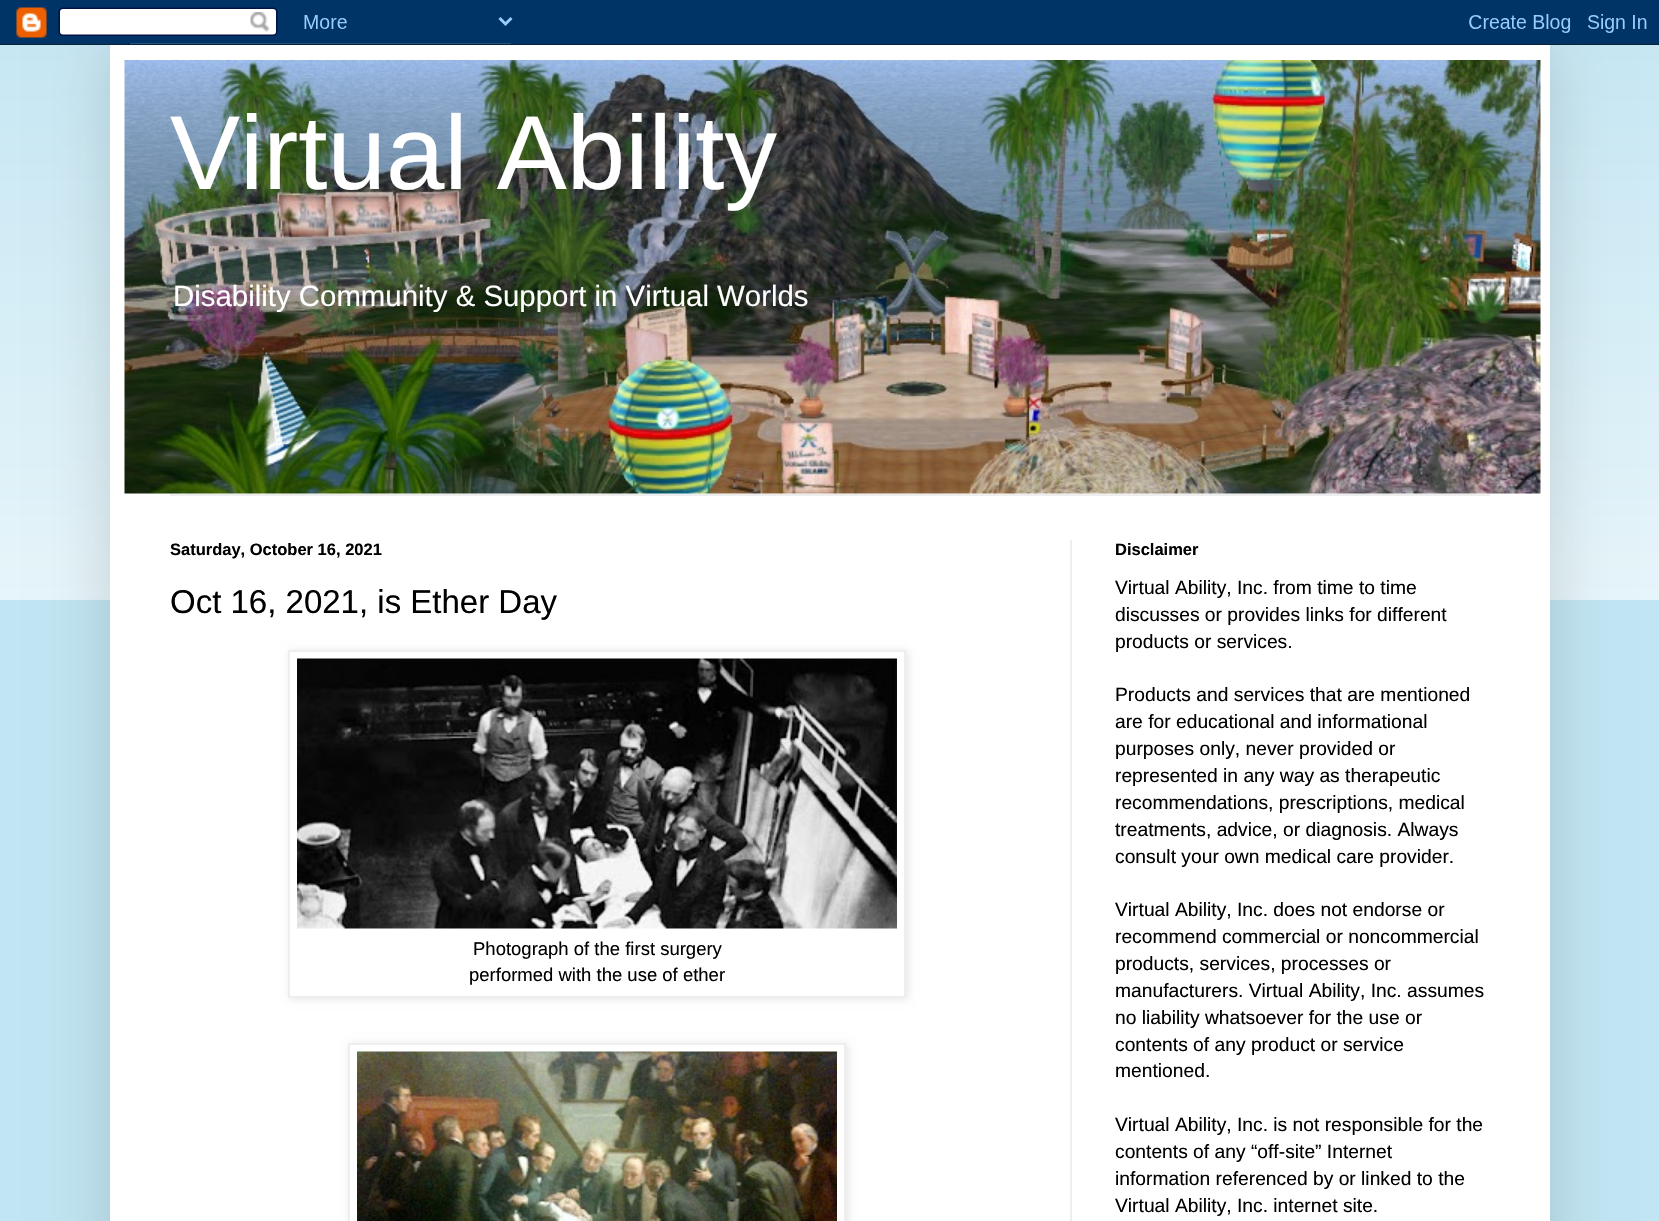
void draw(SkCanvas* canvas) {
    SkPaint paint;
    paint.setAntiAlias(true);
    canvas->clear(0xFFC1E5F2);
    canvas->drawImageRect(SkImages::DeferredFromEncodedData(SkData::MakeFromFileName("img2.png")), SkRect::MakeXYWH(0, 43, 1659, 557), SkSamplingOptions());
    paint.setColor(0x26000000);
    paint.setMaskFilter(SkMaskFilter::MakeBlur(kNormal_SkBlurStyle, 30));
    canvas->drawRect(SkRect::MakeXYWH(110, 45, 1440, 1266), paint);
    paint.setMaskFilter(nullptr);
    canvas->drawImageRect(SkImages::DeferredFromEncodedData(SkData::MakeFromFileName("img1.png")), SkRect::MakeXYWH(0, 0, 1659, 45), SkSamplingOptions());
    paint.setColor(0xFFFFFFFF);
    canvas->drawRect(SkRect::MakeXYWH(110, 45, 1440, 1176), paint);
    canvas->drawImageRect(SkImages::DeferredFromEncodedData(SkData::MakeFromFileName("img3.png")), SkRect::MakeXYWH(124, 60, 1417, 434), SkSamplingOptions());
    SkFont font1(fontMgr->matchFamilyStyle("Liberation Sans", SkFontStyle::Normal()), 105);
    font1.setSubpixel(true);
    canvas->drawString("Virtual Ability", 170, 189, font1, paint);
    SkFont font2(fontMgr->matchFamilyStyle("Liberation Sans", SkFontStyle::Normal()), 29.4f);
    font2.setSubpixel(true);
    canvas->drawString("Disability Community & Support in Virtual Worlds", 173, 306, font2, paint);
    paint.setColor(0xFFEEEEEE);
    canvas->drawRect(SkRect::MakeXYWH(170, 494, 1320, 2), paint);
    canvas->drawRect(SkRect::MakeXYWH(1070, 540, 2, 681), paint);
    SkFont font3(fontMgr->matchFamilyStyle("Liberation Sans", SkFontStyle::Bold()), 16.5f);
    font3.setSubpixel(true);
    paint.setColor(0xFF000000);
    canvas->drawString("Saturday, October 16, 2021", 170, 555, font3, paint);
    SkFont font4(fontMgr->matchFamilyStyle("Liberation Sans", SkFontStyle::Normal()), 33);
    font4.setSubpixel(true);
    canvas->drawString("Oct 16, 2021, is Ether Day", 170, 613, font4, paint);
    paint.setColor(0x1A000000);
    paint.setMaskFilter(SkMaskFilter::MakeBlur(kNormal_SkBlurStyle, 4));
    canvas->drawRect(SkRect::MakeXYWH(290, 651, 618, 348), paint);
    paint.setMaskFilter(nullptr);
    paint.setColor(0xFFFFFFFF);
    canvas->drawRect(SkRect::MakeXYWH(289, 651, 616, 346), paint);
    paint.setStyle(SkPaint::kStroke_Style);
    paint.setStrokeWidth(2);
    paint.setColor(0xFFEEEEEE);
    canvas->drawRect(SkRect::MakeXYWH(289, 651, 616, 346), paint);
    canvas->drawImageRect(SkImages::DeferredFromEncodedData(SkData::MakeFromFileName("img4.png")), SkRect::MakeXYWH(297, 658, 600, 271), SkSamplingOptions());
    SkFont font5(fontMgr->matchFamilyStyle("Liberation Sans", SkFontStyle::Normal()), 18.5f);
    font5.setSubpixel(true);
    paint.setStyle(SkPaint::kFill_Style);
    paint.setColor(0xFF000000);
    canvas->drawString("Photograph of the first surgery", 473, 955, font5, paint);
    canvas->drawString("performed with the use of ether", 469, 981, font5, paint);
    canvas->save();
    canvas->clipPath(SkPathBuilder(SkPathFillType::kEvenOdd).moveTo(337, 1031).lineTo(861, 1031).lineTo(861, 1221).lineTo(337, 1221).close().moveTo(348, 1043).lineTo(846, 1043).lineTo(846, 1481).lineTo(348, 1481).close().detach(), true);
    paint.setColor(0x1A000000);
    paint.setMaskFilter(SkMaskFilter::MakeBlur(kNormal_SkBlurStyle, 4));
    canvas->drawRect(SkRect::MakeXYWH(350, 1044, 498, 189), paint);
    paint.setMaskFilter(nullptr);
    canvas->restore();
    paint.setStyle(SkPaint::kStroke_Style);
    paint.setColor(0xFFEEEEEE);
    canvas->drawRect(SkRect::MakeXYWH(349, 1044, 496, 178), paint);
    canvas->drawImageRect(SkImages::DeferredFromEncodedData(SkData::MakeFromFileName("img5.png")), SkRect::MakeXYWH(357, 1051, 480, 170), SkSamplingOptions());
    paint.setStyle(SkPaint::kFill_Style);
    paint.setColor(0xFF000000);
    canvas->drawString("Disclaimer", 1115, 555, font3, paint);
    SkFont font6(fontMgr->matchFamilyStyle("Liberation Sans", SkFontStyle::Normal()), 19.25f);
    font6.setSubpixel(true);
    canvas->drawString("Virtual Ability, Inc. from time to time", 1115, 594, font6, paint);
    canvas->drawString("discusses or provides links for different", 1115, 621, font6, paint);
    canvas->drawString("products or services.", 1115, 648, font6, paint);
    canvas->drawString("Products and services that are mentioned", 1115, 701, font6, paint);
    canvas->drawString("are for educational and informational", 1115, 728, font6, paint);
    canvas->drawString("purposes only, never provided or", 1115, 755, font6, paint);
    canvas->drawString("represented in any way as therapeutic", 1115, 782, font6, paint);
    canvas->drawString("recommendations, prescriptions, medical", 1115, 809, font6, paint);
    canvas->drawString("treatments, advice, or diagnosis. Always", 1115, 836, font6, paint);
    canvas->drawString("consult your own medical care provider.", 1115, 863, font6, paint);
    canvas->drawString("Virtual Ability, Inc. does not endorse or", 1115, 916, font6, paint);
    canvas->drawString("recommend commercial or noncommercial", 1115, 943, font6, paint);
    canvas->drawString("products, services, processes or", 1115, 970, font6, paint);
    canvas->drawString("manufacturers. Virtual Ability, Inc. assumes", 1115, 997, font6, paint);
    canvas->drawString("no liability whatsoever for the use or", 1115, 1024, font6, paint);
    canvas->drawString("contents of any product or service", 1115, 1051, font6, paint);
    canvas->drawString("mentioned.", 1115, 1077, font6, paint);
    canvas->drawString("Virtual Ability, Inc. is not responsible for the", 1115, 1131, font6, paint);
    canvas->drawString("contents of any “off-site” Internet", 1115, 1158, font6, paint);
    canvas->drawString("information referenced by or linked to the", 1115, 1185, font6, paint);
    canvas->drawString("Virtual Ability, Inc. internet site.", 1115, 1212, font6, paint);
}
